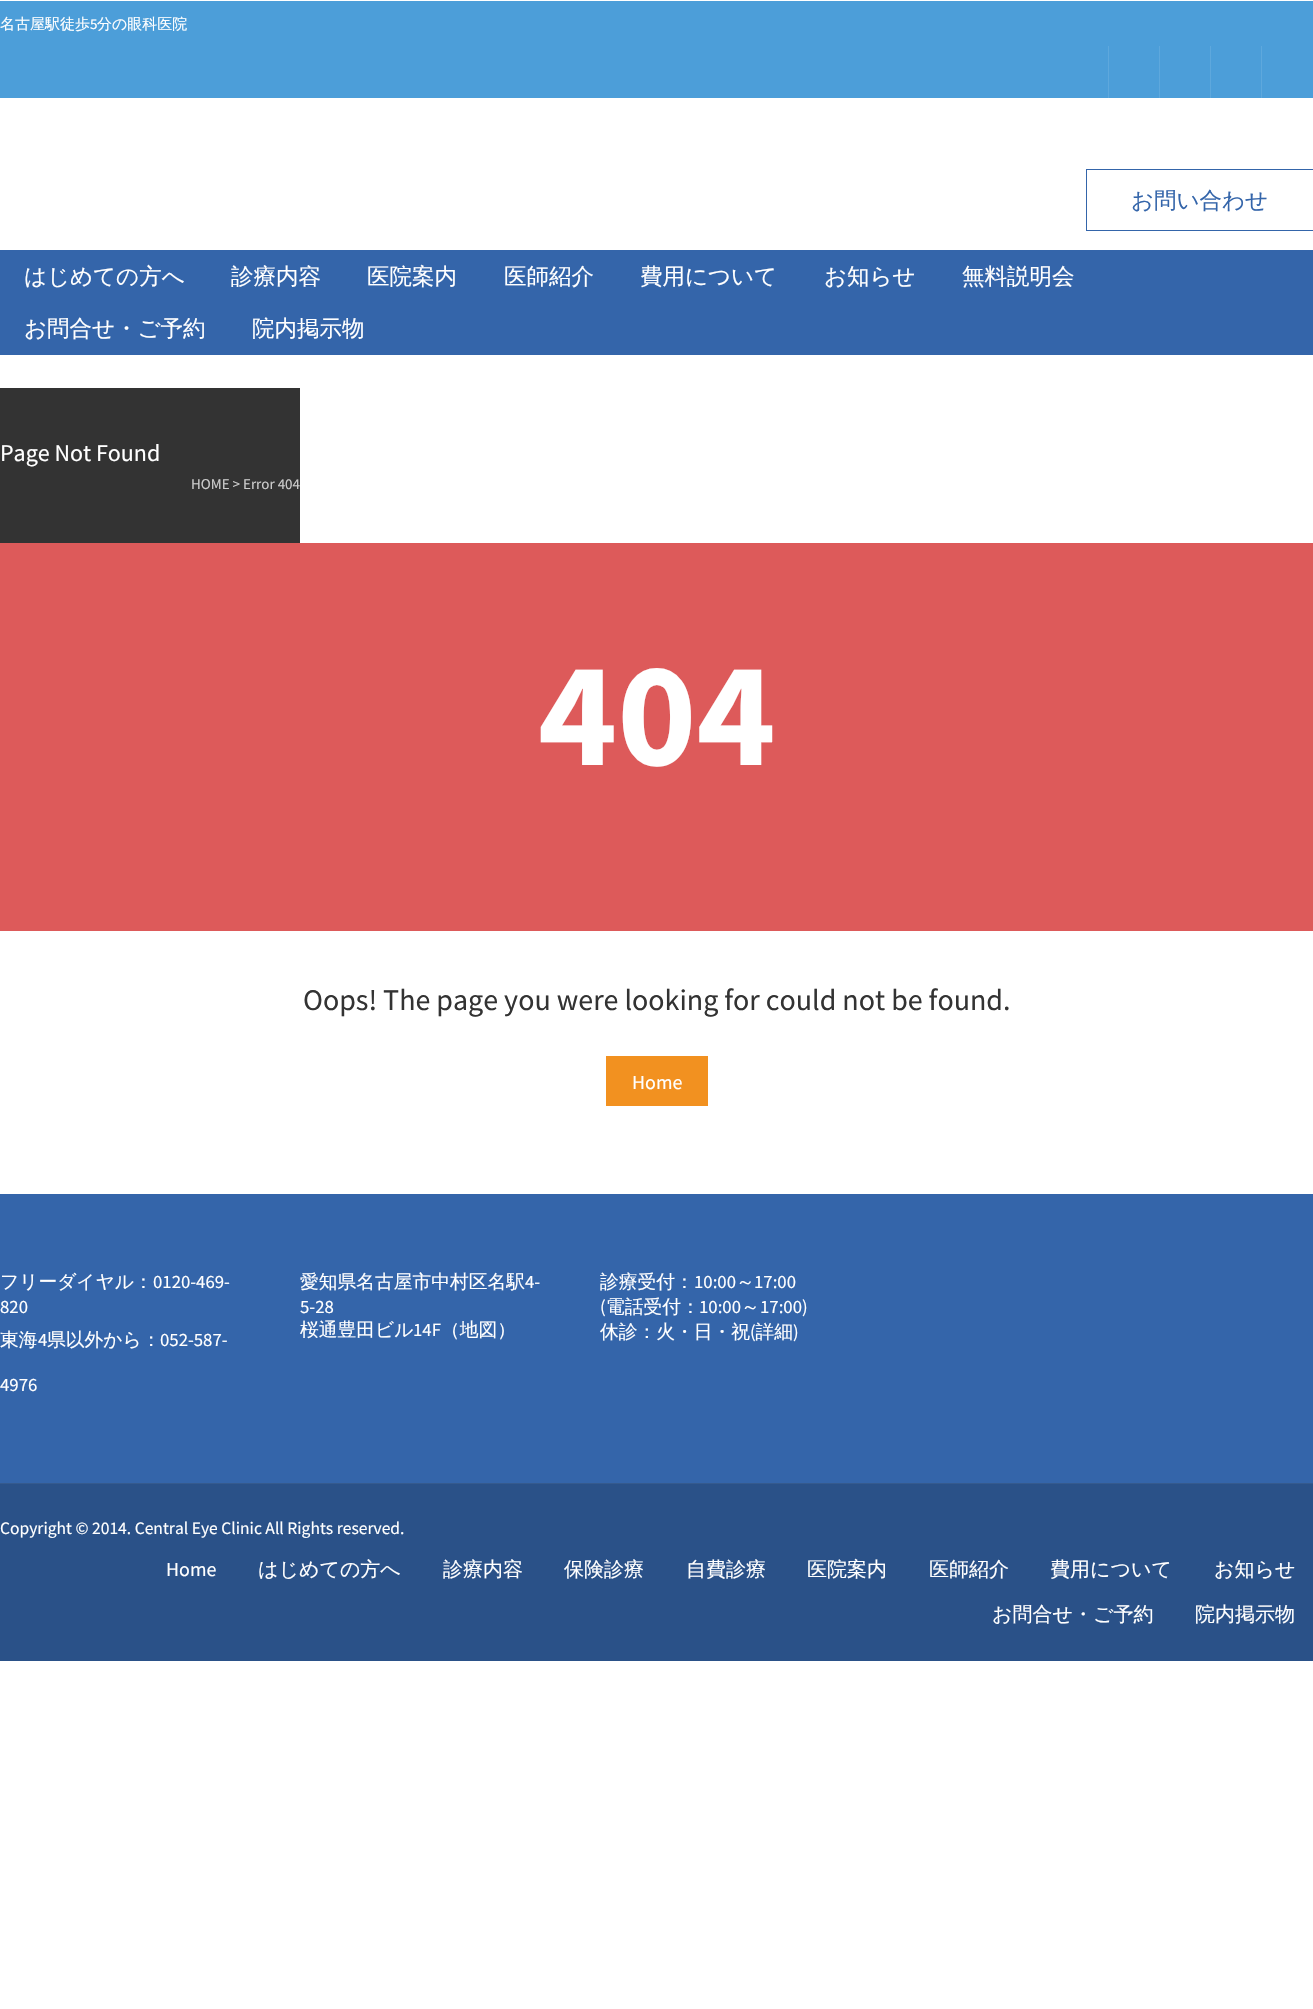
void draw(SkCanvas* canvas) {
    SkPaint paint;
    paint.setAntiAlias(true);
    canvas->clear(0xFFFFFFFF);
    paint.setColor(0xFF4C9ED9);
    canvas->drawRect(SkRect::MakeXYWH(0, 1, 1313, 97), paint);
    SkFont font1(fontMgr->matchFamilyStyle("WenQuanYi Zen Hei", SkFontStyle(500, SkFontStyle::kNormal_Width, SkFontStyle::kUpright_Slant)), 15);
    font1.setSubpixel(true);
    paint.setColor(0xFFFFFFFF);
    canvas->drawString("名古屋駅徒歩", 0, 29, font1, paint);
    SkFont font2(fontMgr->matchFamilyStyle("Source Sans Pro", SkFontStyle::Normal()), 15);
    font2.setSubpixel(true);
    canvas->drawString("5", 90, 29, font2, paint);
    canvas->drawString("分の眼科医院", 97, 29, font1, paint);
    paint.setColor(0xFF5EA8DD);
    canvas->drawRect(SkRect::MakeXYWH(1108, 46, 1, 52), paint);
    canvas->drawRect(SkRect::MakeXYWH(1159, 46, 1, 52), paint);
    canvas->drawRect(SkRect::MakeXYWH(1210, 46, 1, 52), paint);
    canvas->drawRect(SkRect::MakeXYWH(1261, 46, 1, 52), paint);
    paint.setStyle(SkPaint::kStroke_Style);
    paint.setStrokeWidth(1);
    paint.setColor(0xFF3465AA);
    canvas->drawRect(SkRect::MakeXYWH(1086.5f, 169.5f, 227, 61), paint);
    SkFont font3(fontMgr->matchFamilyStyle("WenQuanYi Zen Hei", SkFontStyle(500, SkFontStyle::kNormal_Width, SkFontStyle::kUpright_Slant)), 22.5f);
    font3.setSubpixel(true);
    paint.setStyle(SkPaint::kFill_Style);
    canvas->drawString("お問い合わせ", 1131, 208, font3, paint);
    canvas->drawRect(SkRect::MakeXYWH(0, 250, 1313, 105), paint);
    paint.setColor(0xFFFFFFFF);
    canvas->drawString("はじめての方へ", 24, 284, font3, paint);
    canvas->drawString("診療内容", 231, 284, font3, paint);
    canvas->drawString("医院案内", 367, 284, font3, paint);
    canvas->drawString("医師紹介", 504, 284, font3, paint);
    canvas->drawString("費用について", 640, 284, font3, paint);
    canvas->drawString("お知らせ", 824, 284, font3, paint);
    canvas->drawString("無料説明会", 962, 284, font3, paint);
    canvas->drawString("お問合せ・ご予約", 24, 336, font3, paint);
    canvas->drawString("院内掲示物", 252, 336, font3, paint);
    paint.setColor(0xFF333333);
    canvas->drawRect(SkRect::MakeXYWH(0, 388, 300, 155), paint);
    SkFont font4(fontMgr->matchFamilyStyle("Source Sans Pro", SkFontStyle::Normal()), 24);
    font4.setSubpixel(true);
    paint.setColor(0xFFFFFFFF);
    canvas->drawString("Page Not Found", 0, 461, font4, paint);
    paint.setColor(0xFFCCCCCC);
    canvas->drawString("HOME > Error 404", 191, 489, font2, paint);
    paint.setColor(0xFFDD5A5A);
    canvas->drawRect(SkRect::MakeXYWH(0, 543, 1313, 388), paint);
    SkFont font5(fontMgr->matchFamilyStyle("Source Sans Pro", SkFontStyle::Bold()), 150);
    font5.setSubpixel(true);
    paint.setColor(0xFFFFFFFF);
    canvas->drawString("404", 538, 765, font5, paint);
    SkFont font6(fontMgr->matchFamilyStyle("Source Sans Pro", SkFontStyle::Normal()), 30);
    font6.setSubpixel(true);
    paint.setColor(0xFF333333);
    canvas->drawString("Oops! The page you were looking for could not be found.", 303, 1010, font6, paint);
    paint.setColor(0xFFF29120);
    canvas->drawRect(SkRect::MakeXYWH(606, 1056, 102, 50), paint);
    SkFont font7(fontMgr->matchFamilyStyle("Source Sans Pro", SkFontStyle::Normal()), 20);
    font7.setSubpixel(true);
    paint.setColor(0xFFFFFFFF);
    canvas->drawString("Home", 632, 1089, font7, paint);
    paint.setColor(0xFF3465AA);
    canvas->drawRect(SkRect::MakeXYWH(0, 1194, 1313, 289), paint);
    SkFont font8(fontMgr->matchFamilyStyle("WenQuanYi Zen Hei", SkFontStyle(500, SkFontStyle::kNormal_Width, SkFontStyle::kUpright_Slant)), 18.75f);
    font8.setSubpixel(true);
    paint.setColor(0xFFFFFFFF);
    canvas->drawString("フリーダイヤル：", 0, 1288, font8, paint);
    SkFont font9(fontMgr->matchFamilyStyle("Source Sans Pro", SkFontStyle::Normal()), 18.75f);
    font9.setSubpixel(true);
    canvas->drawString("0120-469-", 153, 1288, font9, paint);
    canvas->drawString("820", 0, 1313, font9, paint);
    canvas->drawString("東海", 0, 1346, font8, paint);
    canvas->drawString("4", 38, 1346, font9, paint);
    canvas->drawString("県以外から：", 47, 1346, font8, paint);
    canvas->drawString("052-587-", 160, 1346, font9, paint);
    canvas->drawString("4976", 0, 1391, font9, paint);
    canvas->drawString("愛知県名古屋市中村区名駅", 300, 1288, font8, paint);
    canvas->drawString("4-", 525, 1288, font9, paint);
    canvas->drawString("5-28", 300, 1313, font9, paint);
    canvas->drawString("桜通豊田ビル", 300, 1336, font8, paint);
    canvas->drawString("14F", 413, 1336, font9, paint);
    canvas->drawString("（地図）", 441, 1336, font8, paint);
    canvas->drawString("診療受付：", 600, 1288, font8, paint);
    canvas->drawString("10:00", 694, 1288, font9, paint);
    canvas->drawString("～", 736, 1288, font8, paint);
    canvas->drawString("17:00", 754, 1288, font9, paint);
    canvas->drawString("(", 600, 1313, font9, paint);
    canvas->drawString("電話受付：", 606, 1313, font8, paint);
    canvas->drawString("10:00", 699, 1313, font9, paint);
    canvas->drawString("～", 741, 1313, font8, paint);
    canvas->drawString("17:00)", 760, 1313, font9, paint);
    canvas->drawString("休診：火・日・祝 詳細", 600, 1338, font8, paint);
    canvas->drawString("(", 750, 1338, font9, paint);
    canvas->drawString(")", 793, 1338, font9, paint);
    paint.setColor(0xFF2A5188);
    canvas->drawRect(SkRect::MakeXYWH(0, 1484, 1313, 177), paint);
    paint.setColor(0xFF355A8E);
    canvas->drawRect(SkRect::MakeXYWH(0, 1483, 1313, 1), paint);
    SkFont font10(fontMgr->matchFamilyStyle("Source Sans Pro", SkFontStyle::Normal()), 17.5f);
    font10.setSubpixel(true);
    paint.setColor(0xFFFFFFFF);
    canvas->drawString("Copyright © 2014. Central Eye Clinic All Rights reserved.", 0, 1534, font10, paint);
    canvas->drawString("Home", 166, 1576, font7, paint);
    SkFont font11(fontMgr->matchFamilyStyle("WenQuanYi Zen Hei", SkFontStyle(500, SkFontStyle::kNormal_Width, SkFontStyle::kUpright_Slant)), 20);
    font11.setSubpixel(true);
    canvas->drawString("はじめての方へ", 258, 1576, font11, paint);
    canvas->drawString("診療内容", 443, 1576, font11, paint);
    canvas->drawString("保険診療", 564, 1576, font11, paint);
    canvas->drawString("自費診療", 686, 1576, font11, paint);
    canvas->drawString("医院案内", 807, 1576, font11, paint);
    canvas->drawString("医師紹介", 929, 1576, font11, paint);
    canvas->drawString("費用について", 1050, 1576, font11, paint);
    canvas->drawString("お知らせ", 1214, 1576, font11, paint);
    canvas->drawString("お問合せ・ご予約", 992, 1621, font11, paint);
    canvas->drawString("院内掲示物", 1195, 1621, font11, paint);
}
